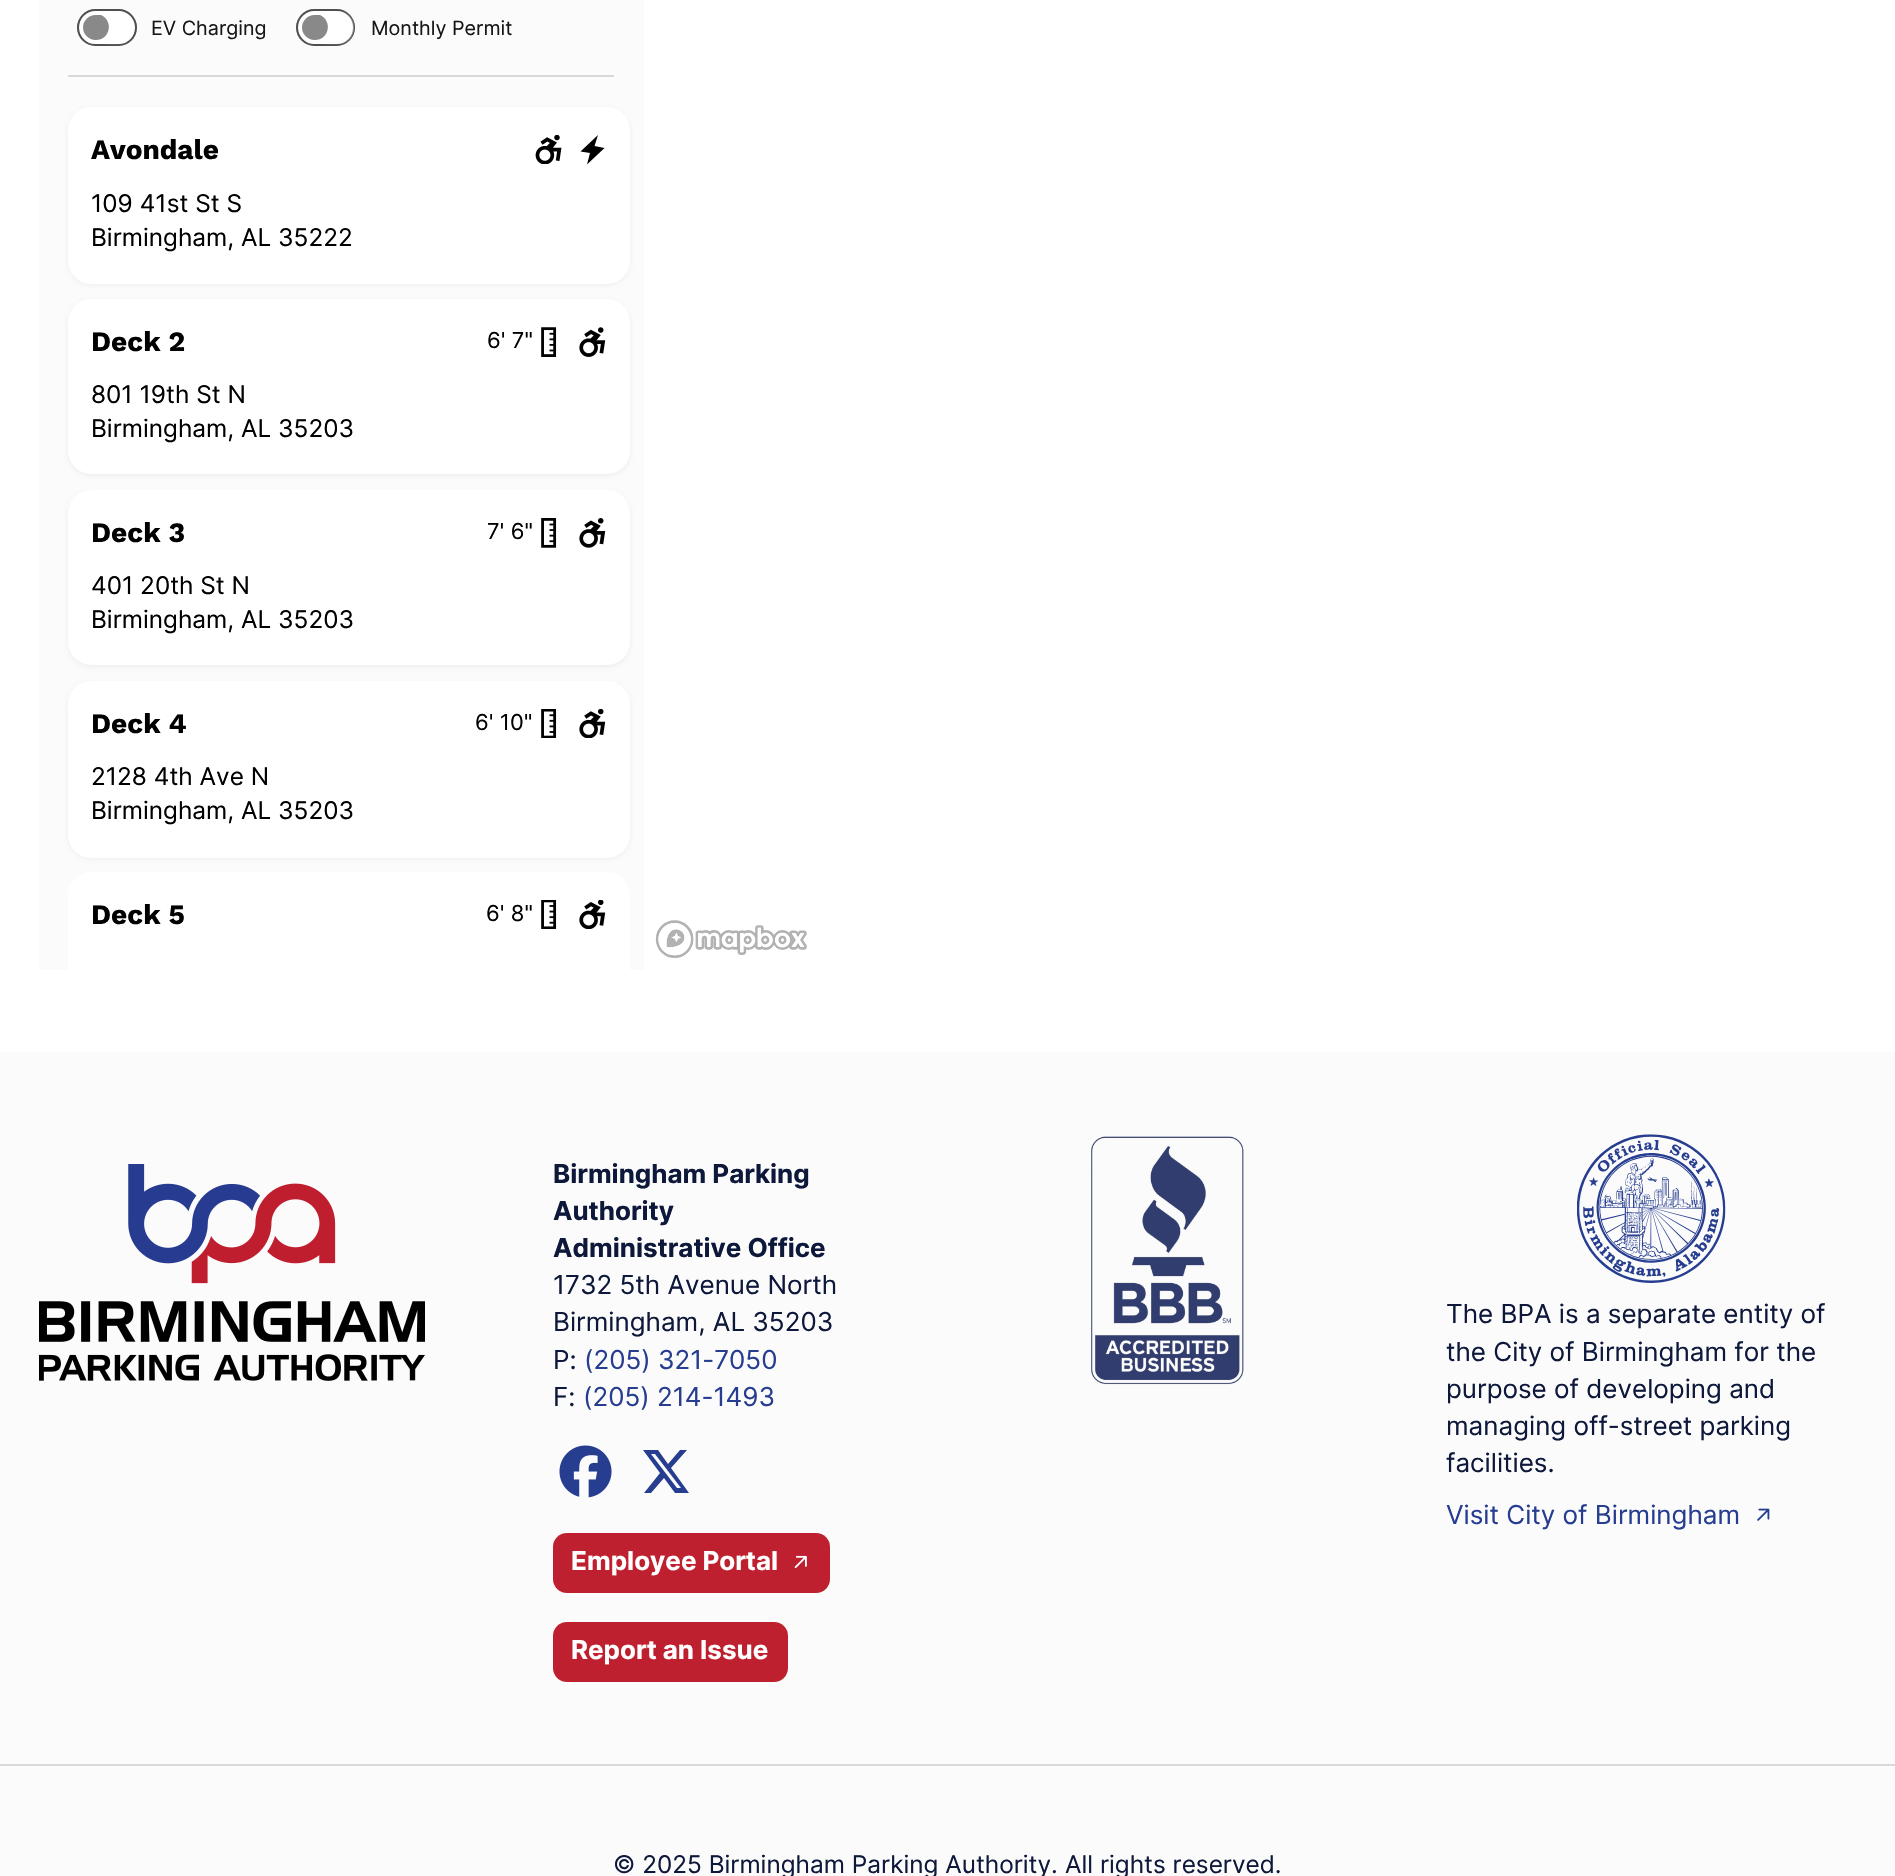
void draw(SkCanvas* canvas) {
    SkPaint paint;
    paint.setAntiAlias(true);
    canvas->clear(0xFFFFFFFF);
    paint.setColor(0xFFFBFBFB);
    canvas->drawRect(SkRect::MakeXYWH(39, 0, 605, 970), paint);
    paint.setColor(0xFFD9D9D9);
    canvas->drawRect(SkRect::MakeXYWH(68, 75, 546, 2), paint);
    paint.setColor(0xFF898989);
    canvas->drawRoundRect(SkRect::MakeXYWH(77, 9, 60, 37), 18.5f, 18.5f, paint);
    paint.setStyle(SkPaint::kStroke_Style);
    paint.setStrokeWidth(4);
    paint.setColor(0xFFFFFFFF);
    canvas->drawRoundRect(SkRect::MakeXYWH(81, 13, 52, 29), 14.5f, 14.5f, paint);
    paint.setStyle(SkPaint::kFill_Style);
    canvas->drawPath(SkPathBuilder().moveTo(96, 11).cubicTo(92, 11, 89, 12, 86, 14).cubicTo(92, 14, 98, 14, 101, 15).cubicTo(114, 21, 110, 40, 96, 40).lineTo(85, 40).cubicTo(90, 45, 97, 44, 103, 44).cubicTo(110, 44, 119, 45, 125, 43).cubicTo(141, 36, 136, 11, 118, 11).close().detach(), paint);
    paint.setStyle(SkPaint::kStroke_Style);
    paint.setStrokeWidth(2);
    paint.setColor(0x80161616);
    canvas->drawRoundRect(SkRect::MakeXYWH(78, 10, 58, 35), 17.5f, 17.5f, paint);
    SkFont font1(fontMgr->matchFamilyStyle("Inter", SkFontStyle::Normal()), 19.75f);
    font1.setSubpixel(true);
    paint.setStyle(SkPaint::kFill_Style);
    paint.setColor(0xFF161616);
    canvas->drawString("EV Charging", 151, 35, font1, paint);
    paint.setColor(0xFF898989);
    canvas->drawRoundRect(SkRect::MakeXYWH(296, 9, 59, 37), 18.5f, 18.5f, paint);
    paint.setStyle(SkPaint::kStroke_Style);
    paint.setStrokeWidth(4);
    paint.setColor(0xFFFFFFFF);
    canvas->drawRoundRect(SkRect::MakeXYWH(300, 13, 52, 29), 14.5f, 14.5f, paint);
    paint.setStyle(SkPaint::kFill_Style);
    canvas->drawPath(SkPathBuilder().moveTo(314, 11).cubicTo(311, 11, 308, 12, 305, 14).cubicTo(311, 14, 317, 14, 320, 15).cubicTo(333, 21, 329, 40, 315, 40).lineTo(304, 40).cubicTo(309, 45, 316, 44, 322, 44).cubicTo(329, 44, 338, 45, 344, 43).cubicTo(360, 36, 355, 11, 338, 11).close().detach(), paint);
    paint.setStyle(SkPaint::kStroke_Style);
    paint.setStrokeWidth(2);
    paint.setColor(0x80161616);
    canvas->drawRoundRect(SkRect::MakeXYWH(297, 10, 57, 35), 17.5f, 17.5f, paint);
    paint.setStyle(SkPaint::kFill_Style);
    paint.setColor(0xFF161616);
    canvas->drawString("Monthly Permit", 371, 35, font1, paint);
    paint.setColor(0x0D000000);
    paint.setMaskFilter(SkMaskFilter::MakeBlur(kNormal_SkBlurStyle, 2));
    canvas->drawRoundRect(SkRect::MakeXYWH(68, 109, 562, 176), 23, 23, paint);
    paint.setMaskFilter(nullptr);
    paint.setColor(0xFFFFFFFF);
    canvas->drawRoundRect(SkRect::MakeXYWH(68, 107, 562, 177), 23, 23, paint);
    SkFont font2(fontMgr->matchFamilyStyle("Work Sans", SkFontStyle::Bold()), 28);
    font2.setSubpixel(true);
    paint.setColor(0xFF000000);
    canvas->drawString("Avondale", 91, 159, font2, paint);
    canvas->drawImageRect(SkImages::DeferredFromEncodedData(SkData::MakeFromFileName("img1.png")), SkRect::MakeXYWH(535, 135, 27, 29), SkSamplingOptions());
    canvas->drawPath(SkPathBuilder().moveTo(580.5f, 151.5f).lineTo(598, 135).lineTo(594.5f, 146).lineTo(604.5f, 148).lineTo(587, 164.5f).lineTo(590, 153).close().detach(), paint);
    SkFont font3(fontMgr->matchFamilyStyle("Inter", SkFontStyle::Normal()), 24.4f);
    font3.setSubpixel(true);
    canvas->drawString("109 41st St S", 91, 212, font3, paint);
    canvas->drawString("Birmingham, AL 35222", 91, 246, font3, paint);
    paint.setColor(0x0D000000);
    paint.setMaskFilter(SkMaskFilter::MakeBlur(kNormal_SkBlurStyle, 2));
    canvas->drawRoundRect(SkRect::MakeXYWH(68, 301, 562, 175), 23, 23, paint);
    paint.setMaskFilter(nullptr);
    paint.setColor(0xFFFFFFFF);
    canvas->drawRoundRect(SkRect::MakeXYWH(68, 299, 562, 175), 23, 23, paint);
    paint.setColor(0xFF000000);
    canvas->drawString("Deck 2", 91, 351, font2, paint);
    SkFont font4(fontMgr->matchFamilyStyle("Inter", SkFontStyle::Normal()), 22);
    font4.setSubpixel(true);
    canvas->drawString("6' 7\"", 487, 348, font4, paint);
    canvas->drawImageRect(SkImages::DeferredFromEncodedData(SkData::MakeFromFileName("img2.png")), SkRect::MakeXYWH(541, 327, 16, 30), SkSamplingOptions());
    canvas->drawImageRect(SkImages::DeferredFromEncodedData(SkData::MakeFromFileName("img3.png")), SkRect::MakeXYWH(579, 327, 27, 30), SkSamplingOptions());
    canvas->drawString("801 19th St N", 91, 403, font3, paint);
    canvas->drawString("Birmingham, AL 35203", 91, 437, font3, paint);
    paint.setColor(0x0D000000);
    paint.setMaskFilter(SkMaskFilter::MakeBlur(kNormal_SkBlurStyle, 2));
    canvas->drawRoundRect(SkRect::MakeXYWH(68, 492, 562, 175), 23, 23, paint);
    paint.setMaskFilter(nullptr);
    paint.setColor(0xFFFFFFFF);
    canvas->drawRoundRect(SkRect::MakeXYWH(68, 490, 562, 175), 23, 23, paint);
    paint.setColor(0xFF000000);
    canvas->drawString("Deck 3", 91, 542, font2, paint);
    canvas->drawString("7' 6\"", 487, 539, font4, paint);
    canvas->drawImageRect(SkImages::DeferredFromEncodedData(SkData::MakeFromFileName("img4.png")), SkRect::MakeXYWH(541, 518, 16, 30), SkSamplingOptions());
    canvas->drawImageRect(SkImages::DeferredFromEncodedData(SkData::MakeFromFileName("img5.png")), SkRect::MakeXYWH(579, 518, 27, 30), SkSamplingOptions());
    canvas->drawString("401 20th St N", 91, 594, font3, paint);
    canvas->drawString("Birmingham, AL 35203", 91, 628, font3, paint);
    paint.setColor(0x0D000000);
    paint.setMaskFilter(SkMaskFilter::MakeBlur(kNormal_SkBlurStyle, 2));
    canvas->drawRoundRect(SkRect::MakeXYWH(68, 683, 562, 176), 23, 23, paint);
    paint.setMaskFilter(nullptr);
    paint.setColor(0xFFFFFFFF);
    canvas->drawRoundRect(SkRect::MakeXYWH(68, 681, 562, 177), 23, 23, paint);
    paint.setColor(0xFF000000);
    canvas->drawString("Deck 4", 91, 733, font2, paint);
    canvas->drawString("6' 10\"", 475, 730, font4, paint);
    canvas->drawImageRect(SkImages::DeferredFromEncodedData(SkData::MakeFromFileName("img6.png")), SkRect::MakeXYWH(541, 709, 16, 29), SkSamplingOptions());
    canvas->drawImageRect(SkImages::DeferredFromEncodedData(SkData::MakeFromFileName("img7.png")), SkRect::MakeXYWH(579, 709, 27, 29), SkSamplingOptions());
    canvas->drawString("2128 4th Ave N", 91, 785, font3, paint);
    canvas->drawString("Birmingham, AL 35203", 91, 819, font3, paint);
    paint.setColor(0xFFFFFFFF);
    canvas->drawPath(SkPathBuilder().moveTo(91, 872).lineTo(607, 872).cubicTo(619.5f, 872, 630, 882.5f, 630, 895).lineTo(630, 970).lineTo(68, 970).lineTo(68, 895).cubicTo(68, 882.5f, 78.5f, 872, 91, 872).close().detach(), paint);
    paint.setColor(0xFF000000);
    canvas->drawString("Deck 5", 91, 924, font2, paint);
    canvas->drawString("6' 8\"", 486, 921, font4, paint);
    canvas->drawImageRect(SkImages::DeferredFromEncodedData(SkData::MakeFromFileName("img8.png")), SkRect::MakeXYWH(541, 900, 16, 29), SkSamplingOptions());
    canvas->drawImageRect(SkImages::DeferredFromEncodedData(SkData::MakeFromFileName("img9.png")), SkRect::MakeXYWH(579, 900, 27, 29), SkSamplingOptions());
    canvas->drawImageRect(SkImages::DeferredFromEncodedData(SkData::MakeFromFileName("img10.png")), SkRect::MakeXYWH(655, 920, 152, 38), SkSamplingOptions());
    paint.setColor(0xFFFBFBFB);
    canvas->drawRect(SkRect::MakeXYWH(0, 1052, 1895, 824), paint);
    canvas->drawImageRect(SkImages::DeferredFromEncodedData(SkData::MakeFromFileName("img11.png")), SkRect::MakeXYWH(39, 1164, 386, 217), SkSamplingOptions());
    SkFont font5(fontMgr->matchFamilyStyle("Inter", SkFontStyle::Bold()), 26);
    font5.setSubpixel(true);
    paint.setColor(0xFF0E183B);
    canvas->drawString("Birmingham Parking", 553, 1183, font5, paint);
    canvas->drawString("Authority", 553, 1220, font5, paint);
    canvas->drawString("Administrative Office", 553, 1257, font5, paint);
    SkFont font6(fontMgr->matchFamilyStyle("Inter", SkFontStyle::Normal()), 26);
    font6.setSubpixel(true);
    canvas->drawString("1732 5th Avenue North", 553, 1294, font6, paint);
    canvas->drawString("Birmingham, AL 35203", 553, 1331, font6, paint);
    canvas->drawString("P:", 553, 1369, font6, paint);
    paint.setColor(0xFF263D90);
    canvas->drawString("(205) 321-7050", 584, 1369, font6, paint);
    paint.setColor(0xFF0E183B);
    canvas->drawString("F:", 553, 1406, font6, paint);
    paint.setColor(0xFF263D90);
    canvas->drawString("(205) 214-1493", 583, 1406, font6, paint);
    canvas->drawImageRect(SkImages::DeferredFromEncodedData(SkData::MakeFromFileName("img12.png")), SkRect::MakeXYWH(559, 1445, 53, 53), SkSamplingOptions());
    canvas->drawPath(SkPathBuilder().moveTo(680, 1450).lineTo(687, 1450).lineTo(671, 1468).lineTo(689, 1493).lineTo(675, 1493).lineTo(664, 1478).lineTo(651, 1493).lineTo(644, 1493).lineTo(660, 1473).lineTo(643, 1450).lineTo(658, 1450).lineTo(668, 1464).close().moveTo(677, 1488).lineTo(681, 1488).lineTo(655, 1454).lineTo(651, 1454).close().detach(), paint);
    paint.setColor(0xFFBF202F);
    canvas->drawRoundRect(SkRect::MakeXYWH(553, 1533, 277, 60), 14, 14, paint);
    paint.setColor(0xFFFFFFFF);
    canvas->drawString("Employee Portal", 571, 1570, font5, paint);
    canvas->drawImageRect(SkImages::DeferredFromEncodedData(SkData::MakeFromFileName("img13.png")), SkRect::MakeXYWH(794, 1555, 13, 13), SkSamplingOptions());
    paint.setColor(0xFFBF202F);
    canvas->drawRoundRect(SkRect::MakeXYWH(553, 1622, 235, 60), 14, 14, paint);
    paint.setColor(0xFFFFFFFF);
    canvas->drawString("Report an Issue", 571, 1659, font5, paint);
    canvas->drawImageRect(SkImages::DeferredFromEncodedData(SkData::MakeFromFileName("img14.png")), SkRect::MakeXYWH(1091, 1136, 153, 249), SkSamplingOptions());
    canvas->drawImageRect(SkImages::DeferredFromEncodedData(SkData::MakeFromFileName("img15.png")), SkRect::MakeXYWH(1577, 1134, 149, 149), SkSamplingOptions());
    paint.setColor(0xFF0E183B);
    canvas->drawString("The BPA is a separate entity of", 1446, 1323, font6, paint);
    canvas->drawString("the City of Birmingham for the", 1446, 1361, font6, paint);
    canvas->drawString("purpose of developing and", 1446, 1398, font6, paint);
    canvas->drawString("managing off-street parking", 1446, 1435, font6, paint);
    canvas->drawString("facilities.", 1446, 1472, font6, paint);
    paint.setColor(0xFF263D90);
    canvas->drawString("Visit City of Birmingham", 1446, 1524, font6, paint);
    canvas->drawImageRect(SkImages::DeferredFromEncodedData(SkData::MakeFromFileName("img16.png")), SkRect::MakeXYWH(1757, 1508, 13, 13), SkSamplingOptions());
    paint.setColor(0xFFD9D9D9);
    canvas->drawRect(SkRect::MakeXYWH(0, 1764, 1895, 2), paint);
    paint.setColor(0xFF0E183B);
    canvas->drawString("© 2025 Birmingham Parking Authority.", 613, 1873, font3, paint);
    canvas->drawString("All rights reserved.", 1065, 1873, font3, paint);
}
